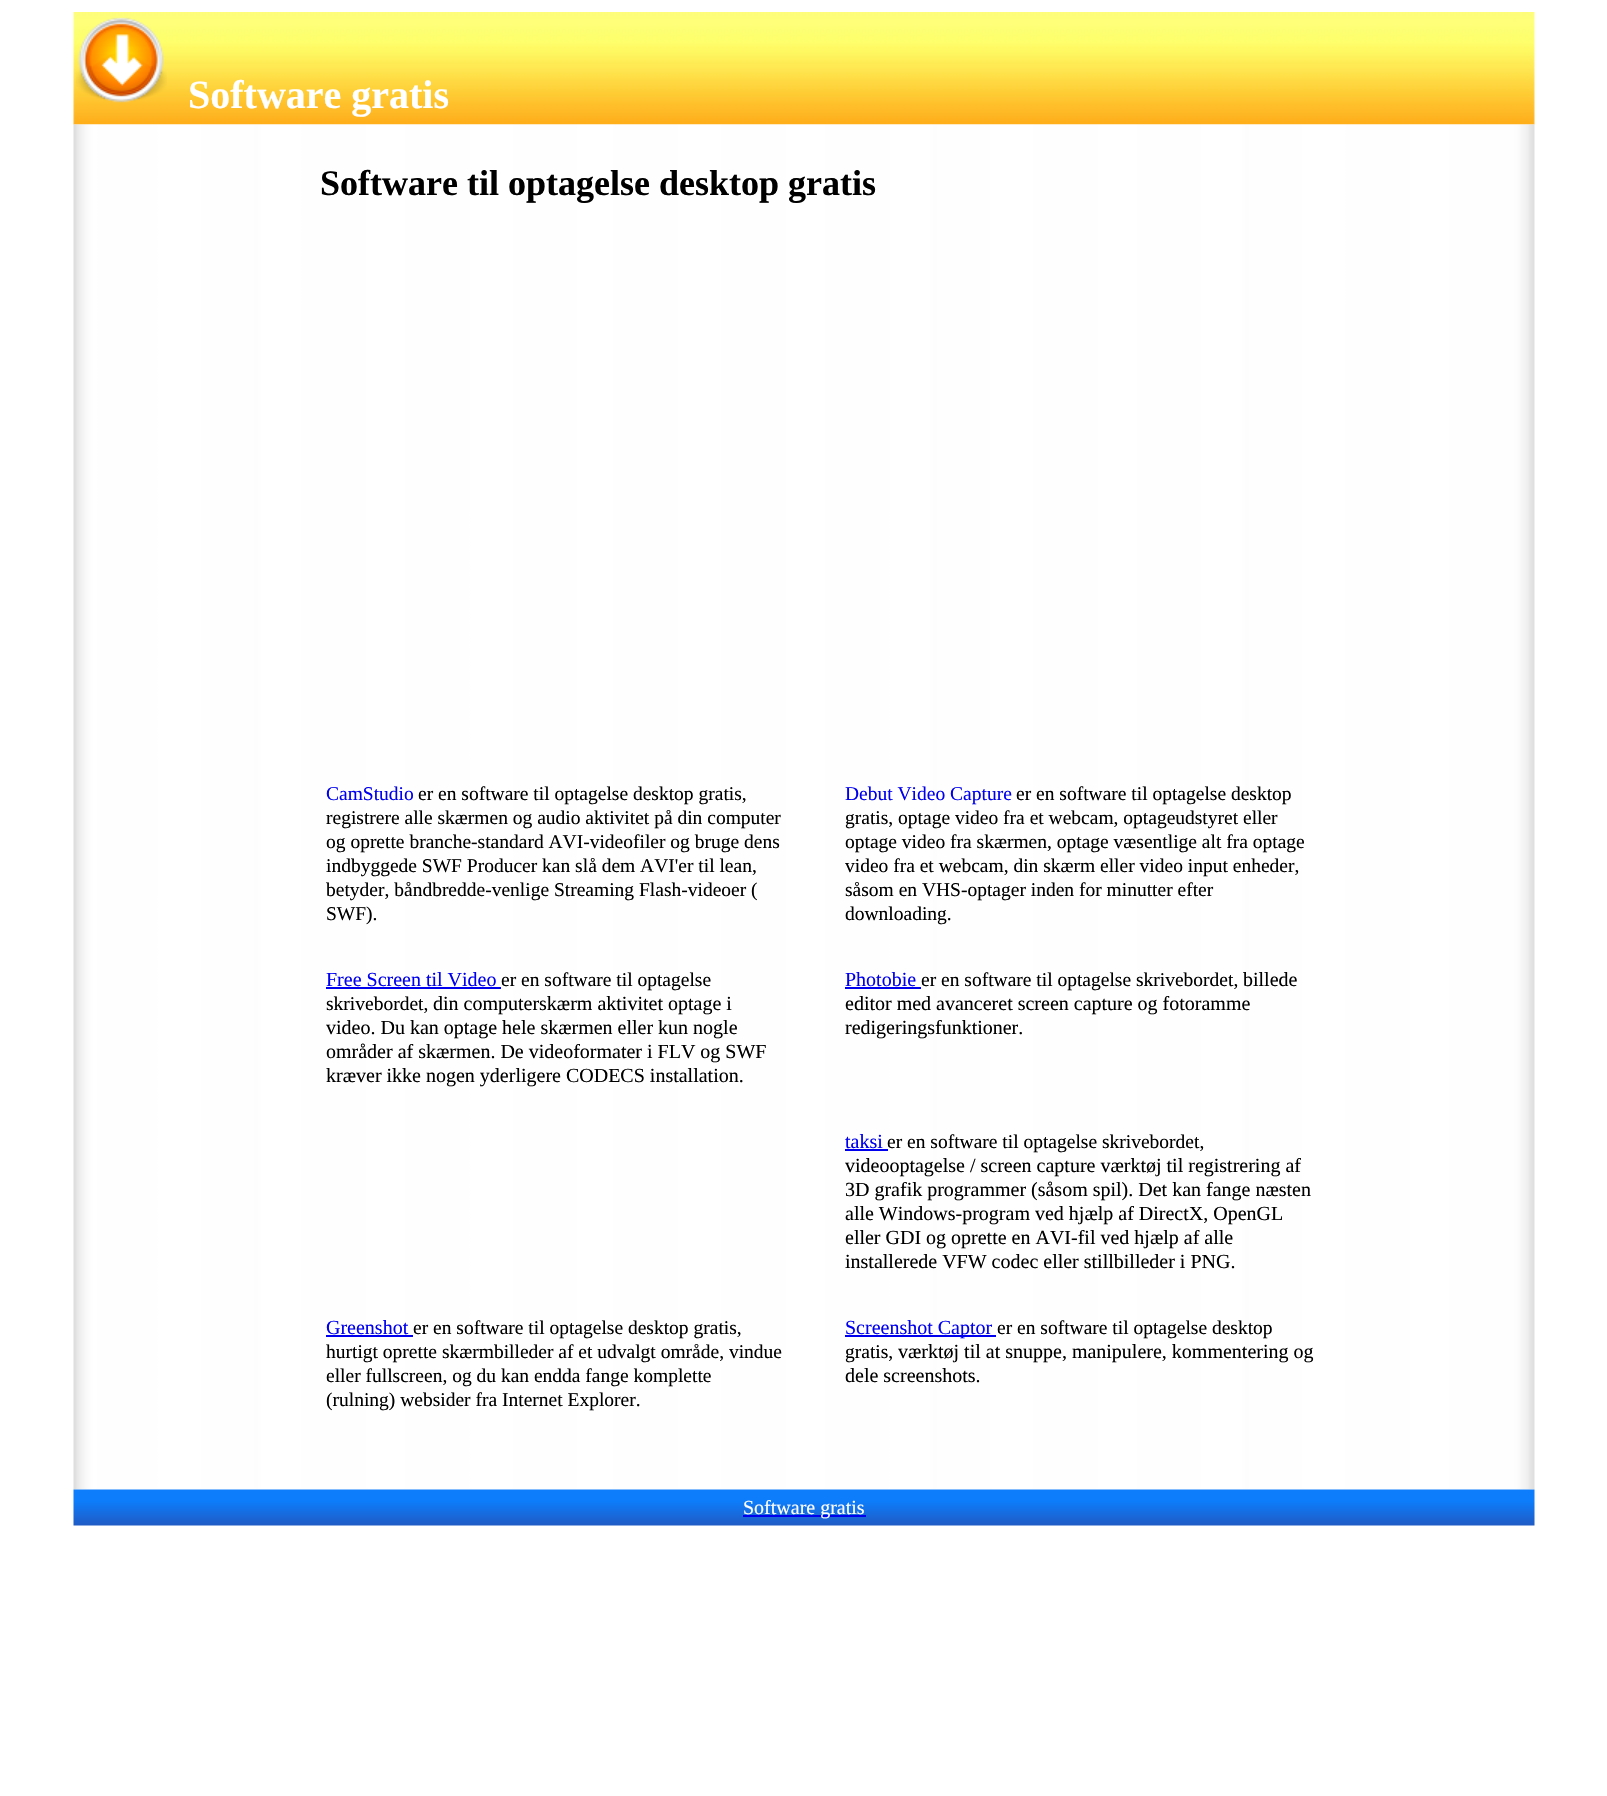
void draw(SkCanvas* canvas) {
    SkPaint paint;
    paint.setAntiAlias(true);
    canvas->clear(0xFFFFFFFF);
    canvas->drawImageRect(SkImages::DeferredFromEncodedData(SkData::MakeFromFileName("img1.png")), SkRect::MakeXYWH(73, 12, 1462, 113), SkSamplingOptions());
    canvas->drawImageRect(SkImages::DeferredFromEncodedData(SkData::MakeFromFileName("img2.png")), SkRect::MakeXYWH(76, 17, 91, 86), SkSamplingOptions());
    SkFont font1(fontMgr->matchFamilyStyle("Liberation Serif", SkFontStyle::Bold()), 40);
    font1.setSubpixel(true);
    paint.setColor(0xFFFFFFFF);
    canvas->drawString("Software gratis", 188, 108, font1, paint);
    canvas->drawImageRect(SkImages::DeferredFromEncodedData(SkData::MakeFromFileName("img3.png")), SkRect::MakeXYWH(73, 124, 1462, 1366), SkSamplingOptions());
    SkFont font2(fontMgr->matchFamilyStyle("Liberation Serif", SkFontStyle::Bold()), 36);
    font2.setSubpixel(true);
    paint.setColor(0xFF000000);
    canvas->drawString("Software til optagelse desktop gratis", 320, 195, font2, paint);
    SkFont font3(fontMgr->matchFamilyStyle("Liberation Serif", SkFontStyle::Normal()), 19.5f);
    font3.setSubpixel(true);
    paint.setColor(0xFF0000EE);
    canvas->drawString("CamStudio", 326, 800, font3, paint);
    paint.setColor(0xFF000000);
    canvas->drawString("er en software til optagelse desktop gratis,", 418, 800, font3, paint);
    canvas->drawString("registrere alle skærmen og audio aktivitet på din computer", 326, 824, font3, paint);
    canvas->drawString("og oprette branche-standard AVI-videofiler og bruge dens", 326, 848, font3, paint);
    canvas->drawString("indbyggede SWF Producer kan slå dem AVI'er til lean,", 326, 872, font3, paint);
    canvas->drawString("betyder, båndbredde-venlige Streaming Flash-videoer (", 326, 896, font3, paint);
    canvas->drawString("SWF).", 326, 920, font3, paint);
    paint.setColor(0xFF0000EE);
    canvas->drawString("Debut Video Capture", 845, 800, font3, paint);
    paint.setColor(0xFF000000);
    canvas->drawString("er en software til optagelse desktop", 1016, 800, font3, paint);
    canvas->drawString("gratis, optage video fra et webcam, optageudstyret eller", 845, 824, font3, paint);
    canvas->drawString("optage video fra skærmen, optage væsentlige alt fra optage", 845, 848, font3, paint);
    canvas->drawString("video fra et webcam, din skærm eller video input enheder,", 845, 872, font3, paint);
    canvas->drawString("såsom en VHS-optager inden for minutter efter", 845, 896, font3, paint);
    canvas->drawString("downloading.", 845, 920, font3, paint);
    SkFont font4(fontMgr->matchFamilyStyle("Liberation Serif", SkFontStyle::Normal()), 20);
    font4.setSubpixel(true);
    paint.setColor(0xFF0000EE);
    canvas->drawString("Free Screen til Video", 326, 986, font4, paint);
    canvas->drawRect(SkRect::MakeXYWH(326, 987, 175, 2), paint);
    paint.setColor(0xFF000000);
    canvas->drawString("er en software til optagelse", 501, 986, font3, paint);
    canvas->drawString("skrivebordet,", 326, 1010, font3, paint);
    canvas->drawString("din computerskærm aktivitet optage i", 433, 1010, font4, paint);
    canvas->drawString("video. Du kan optage hele skærmen eller kun nogle", 326, 1034, font4, paint);
    canvas->drawString("områder af skærmen. De videoformater i FLV og SWF", 326, 1058, font4, paint);
    canvas->drawString("kræver ikke nogen yderligere CODECS installation.", 326, 1082, font4, paint);
    paint.setColor(0xFF0000EE);
    canvas->drawString("Photobie", 845, 986, font4, paint);
    canvas->drawRect(SkRect::MakeXYWH(845, 987, 76, 2), paint);
    paint.setColor(0xFF000000);
    canvas->drawString("er en software til optagelse skrivebordet,", 921, 986, font3, paint);
    canvas->drawString("billede", 1243, 986, font4, paint);
    canvas->drawString("editor med avanceret screen capture og fotoramme", 845, 1010, font4, paint);
    canvas->drawString("redigeringsfunktioner.", 845, 1034, font4, paint);
    paint.setColor(0xFF0000EE);
    canvas->drawString("taksi", 845, 1148, font4, paint);
    canvas->drawRect(SkRect::MakeXYWH(845, 1149, 43, 2), paint);
    paint.setColor(0xFF000000);
    canvas->drawString("er en software til optagelse skrivebordet,", 887, 1148, font3, paint);
    canvas->drawString("videooptagelse / screen capture værktøj til registrering af", 845, 1172, font4, paint);
    canvas->drawString("3D grafik programmer (såsom spil). Det kan fange næsten", 845, 1196, font4, paint);
    canvas->drawString("alle Windows-program ved hjælp af DirectX, OpenGL", 845, 1220, font4, paint);
    canvas->drawString("eller GDI og oprette en AVI-fil ved hjælp af alle", 845, 1244, font4, paint);
    canvas->drawString("installerede VFW codec eller stillbilleder i PNG.", 845, 1268, font4, paint);
    paint.setColor(0xFF0000EE);
    canvas->drawString("Greenshot", 326, 1334, font4, paint);
    canvas->drawRect(SkRect::MakeXYWH(326, 1335, 87, 2), paint);
    paint.setColor(0xFF000000);
    canvas->drawString("er en software til optagelse desktop gratis,", 413, 1334, font3, paint);
    canvas->drawString("hurtigt oprette skærmbilleder af et udvalgt område, vindue", 326, 1358, font3, paint);
    canvas->drawString("eller fullscreen, og du kan endda fange komplette", 326, 1382, font3, paint);
    canvas->drawString("(rulning) websider fra Internet Explorer.", 326, 1406, font3, paint);
    paint.setColor(0xFF0000EE);
    canvas->drawRect(SkRect::MakeXYWH(845, 1335, 151, 2), paint);
    canvas->drawString("Screenshot Captor", 845, 1334, font4, paint);
    paint.setColor(0xFF000000);
    canvas->drawString("er en software til optagelse desktop", 997, 1334, font3, paint);
    canvas->drawString("gratis,", 845, 1358, font3, paint);
    canvas->drawString("værktøj til at snuppe, manipulere, kommentering og", 898, 1358, font4, paint);
    canvas->drawString("dele screenshots.", 845, 1382, font4, paint);
    canvas->drawImageRect(SkImages::DeferredFromEncodedData(SkData::MakeFromFileName("img4.png")), SkRect::MakeXYWH(73, 1489, 1462, 37), SkSamplingOptions());
    paint.setColor(0xFF0000EE);
    canvas->drawRect(SkRect::MakeXYWH(743, 1515, 123, 2), paint);
    paint.setColor(0xFFFFFFFF);
    canvas->drawString("Software gratis", 743, 1514, font4, paint);
}
